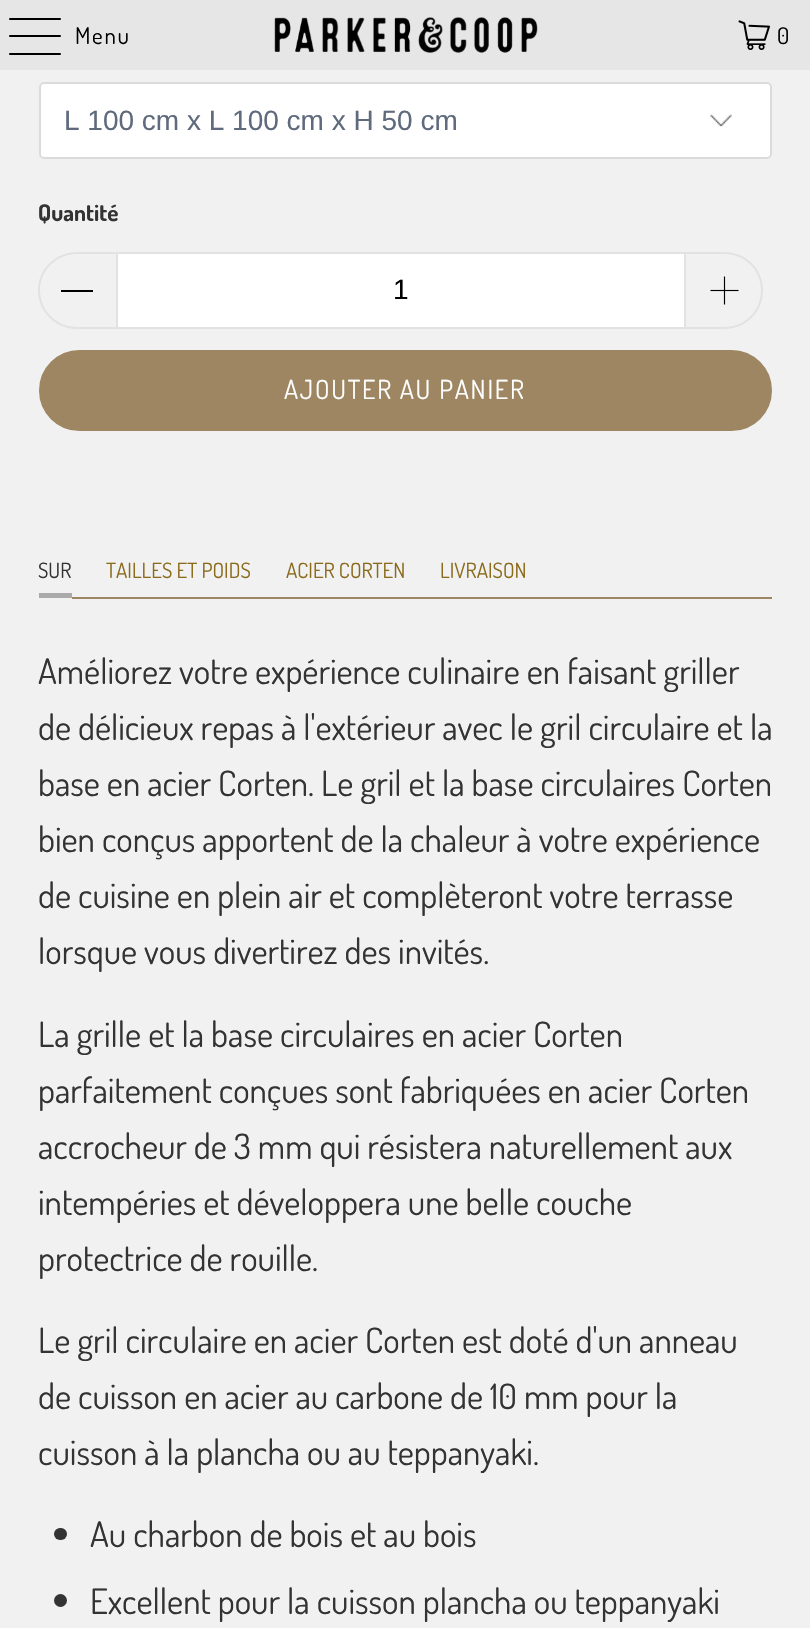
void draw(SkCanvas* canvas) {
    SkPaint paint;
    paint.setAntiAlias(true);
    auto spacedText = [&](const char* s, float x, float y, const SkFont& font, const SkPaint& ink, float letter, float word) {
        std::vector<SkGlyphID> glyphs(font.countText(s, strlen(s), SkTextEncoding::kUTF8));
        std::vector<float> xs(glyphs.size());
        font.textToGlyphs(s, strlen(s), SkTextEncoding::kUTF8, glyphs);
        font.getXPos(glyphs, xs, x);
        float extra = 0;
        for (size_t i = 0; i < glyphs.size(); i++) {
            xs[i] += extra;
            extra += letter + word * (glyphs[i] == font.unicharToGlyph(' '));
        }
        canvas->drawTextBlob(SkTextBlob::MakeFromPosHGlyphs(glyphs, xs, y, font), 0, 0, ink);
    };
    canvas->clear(0xFFF1F1F1);
    paint.setColor(0xFFE6E6E6);
    canvas->drawRect(SkRect::MakeXYWH(0, 0, 810, 70), paint);
    paint.setColor(0xFF000000);
    canvas->drawRoundRect(SkRect::MakeXYWH(9, 18, 52, 2), 1, 1, paint);
    canvas->drawRoundRect(SkRect::MakeXYWH(9, 35, 52, 2), 1, 1, paint);
    canvas->drawRoundRect(SkRect::MakeXYWH(9, 53, 52, 2), 1, 1, paint);
    SkFont font1(fontMgr->matchFamilyStyle("Dosis", SkFontStyle::Normal()), 23);
    font1.setSubpixel(true);
    spacedText("Menu", 75, 44, font1, paint, 1.75f, 0);
    canvas->drawImageRect(SkImages::DeferredFromEncodedData(SkData::MakeFromFileName("img1.png")), SkRect::MakeXYWH(274, 17, 264, 36), SkSamplingOptions());
    canvas->drawImageRect(SkImages::DeferredFromEncodedData(SkData::MakeFromFileName("img2.png")), SkRect::MakeXYWH(738, 20, 32, 30), SkSamplingOptions());
    spacedText("0", 777, 44, font1, paint, 1.75f, 0);
    paint.setColor(0xFFFFFFFF);
    canvas->drawRoundRect(SkRect::MakeXYWH(39, 82, 733, 77), 5, 5, paint);
    canvas->drawImageRect(SkImages::DeferredFromEncodedData(SkData::MakeFromFileName("img3.png")), SkRect::MakeXYWH(710, 114, 22, 13), SkSamplingOptions());
    paint.setStyle(SkPaint::kStroke_Style);
    paint.setStrokeWidth(2);
    paint.setColor(0xFFD9DBDC);
    canvas->drawRoundRect(SkRect::MakeXYWH(40, 83, 731, 75), 4, 4, paint);
    SkFont font2(fontMgr->matchFamilyStyle("Liberation Sans", SkFontStyle::Normal()), 28);
    font2.setSubpixel(true);
    paint.setStyle(SkPaint::kFill_Style);
    paint.setColor(0xFF5F6A7D);
    canvas->drawString("L 100 cm x L 100 cm x H 50 cm", 64, 130, font2, paint);
    SkFont font3(fontMgr->matchFamilyStyle("Dosis", SkFontStyle::Bold()), 23);
    font3.setSubpixel(true);
    paint.setColor(0xFF333333);
    canvas->drawString("Quantité", 38, 221, font3, paint);
    paint.setColor(0xFFE2E2E2);
    canvas->drawPath(SkPathBuilder(SkPathFillType::kEvenOdd).moveTo(77, 252).lineTo(116, 252).lineTo(116, 329).lineTo(77, 329).cubicTo(56, 329, 38, 312, 38, 290).cubicTo(38, 269, 56, 252, 77, 252).close().moveTo(77, 254).lineTo(116, 254).lineTo(116, 327).lineTo(77, 327).cubicTo(57, 327, 40, 311, 40, 290).cubicTo(40, 270, 57, 254, 77, 254).close().detach(), paint);
    paint.setColor(0xFF000000);
    canvas->drawRect(SkRect::MakeXYWH(61, 290, 32, 2), paint);
    paint.setColor(0xFFFFFFFF);
    canvas->drawRect(SkRect::MakeXYWH(117, 253, 568, 75), paint);
    paint.setStyle(SkPaint::kStroke_Style);
    paint.setColor(0xFFE2E2E2);
    canvas->drawRect(SkRect::MakeXYWH(117, 253, 568, 75), paint);
    paint.setStyle(SkPaint::kFill_Style);
    paint.setColor(0xFF000000);
    canvas->drawString("1", 393, 299, font2, paint);
    paint.setColor(0xFFE2E2E2);
    canvas->drawPath(SkPathBuilder(SkPathFillType::kEvenOdd).moveTo(686, 252).lineTo(724, 252).cubicTo(746, 252, 763, 269, 763, 290).cubicTo(763, 312, 746, 329, 724, 329).lineTo(686, 329).close().moveTo(686, 254).lineTo(724, 254).cubicTo(745, 254, 761, 270, 761, 290).cubicTo(761, 311, 745, 327, 724, 327).lineTo(686, 327).close().detach(), paint);
    canvas->drawImageRect(SkImages::DeferredFromEncodedData(SkData::MakeFromFileName("img4.png")), SkRect::MakeXYWH(710, 276, 29, 29), SkSamplingOptions());
    paint.setColor(0xFF9D8661);
    canvas->drawRoundRect(SkRect::MakeXYWH(40, 351, 731, 79), 39.5f, 39.5f, paint);
    paint.setStyle(SkPaint::kStroke_Style);
    canvas->drawRoundRect(SkRect::MakeXYWH(40, 351, 731, 79), 39.5f, 39.5f, paint);
    SkFont font4(fontMgr->matchFamilyStyle("Dosis", SkFontStyle::Normal()), 26.25f);
    font4.setSubpixel(true);
    paint.setStyle(SkPaint::kFill_Style);
    paint.setColor(0xFFFFFFFF);
    spacedText("AJOUTER AU PANIER", 284, 399, font4, paint, 1.75f, 0);
    paint.setColor(0xFF9D8661);
    canvas->drawRect(SkRect::MakeXYWH(72, 597, 700, 2), paint);
    paint.setColor(0xFFAAAAAA);
    canvas->drawRect(SkRect::MakeXYWH(39, 593, 33, 5), paint);
    SkFont font5(fontMgr->matchFamilyStyle("Dosis", SkFontStyle::Normal()), 21);
    font5.setSubpixel(true);
    paint.setColor(0xFF333333);
    canvas->drawString("SUR", 38, 578, font5, paint);
    paint.setColor(0xFF8B6A1B);
    canvas->drawString("TAILLES ET POIDS", 106, 578, font5, paint);
    canvas->drawString("ACIER CORTEN", 286, 578, font5, paint);
    canvas->drawString("LIVRAISON", 440, 578, font5, paint);
    SkFont font6(fontMgr->matchFamilyStyle("Dosis", SkFontStyle::Normal()), 35);
    font6.setSubpixel(true);
    paint.setColor(0xFF333333);
    canvas->drawString("Améliorez votre expérience culinaire en faisant griller", 38, 684, font6, paint);
    canvas->drawString("de délicieux repas à l'extérieur avec le gril circulaire et la", 38, 740, font6, paint);
    canvas->drawString("base en acier Corten. Le gril et la base circulaires Corten", 38, 796, font6, paint);
    canvas->drawString("bien conçus apportent de la chaleur à votre expérience", 38, 852, font6, paint);
    canvas->drawString("de cuisine en plein air et complèteront votre terrasse", 38, 908, font6, paint);
    canvas->drawString("lorsque vous divertirez des invités.", 38, 964, font6, paint);
    canvas->drawString("La grille et la base circulaires en acier Corten", 38, 1047, font6, paint);
    canvas->drawString("parfaitement conçues sont fabriquées en acier Corten", 38, 1103, font6, paint);
    canvas->drawString("accrocheur de 3 mm qui résistera naturellement aux", 38, 1159, font6, paint);
    canvas->drawString("intempéries et développera une belle couche", 38, 1215, font6, paint);
    canvas->drawString("protectrice de rouille.", 38, 1271, font6, paint);
    canvas->drawString("Le gril circulaire en acier Corten est doté d'un anneau", 38, 1353, font6, paint);
    canvas->drawString("de cuisson en acier au carbone de 10 mm pour la", 38, 1409, font6, paint);
    canvas->drawString("cuisson à la plancha ou au teppanyaki.", 38, 1465, font6, paint);
    canvas->drawRoundRect(SkRect::MakeXYWH(54, 1528, 13, 12), 6, 6, paint);
    canvas->drawString("Au charbon de bois et au bois", 90, 1547, font6, paint);
    canvas->drawCircle(60.5f, 1600.5f, 6.5f, paint);
    canvas->drawString("Excellent pour la cuisson plancha ou teppanyaki", 90, 1614, font6, paint);
}
